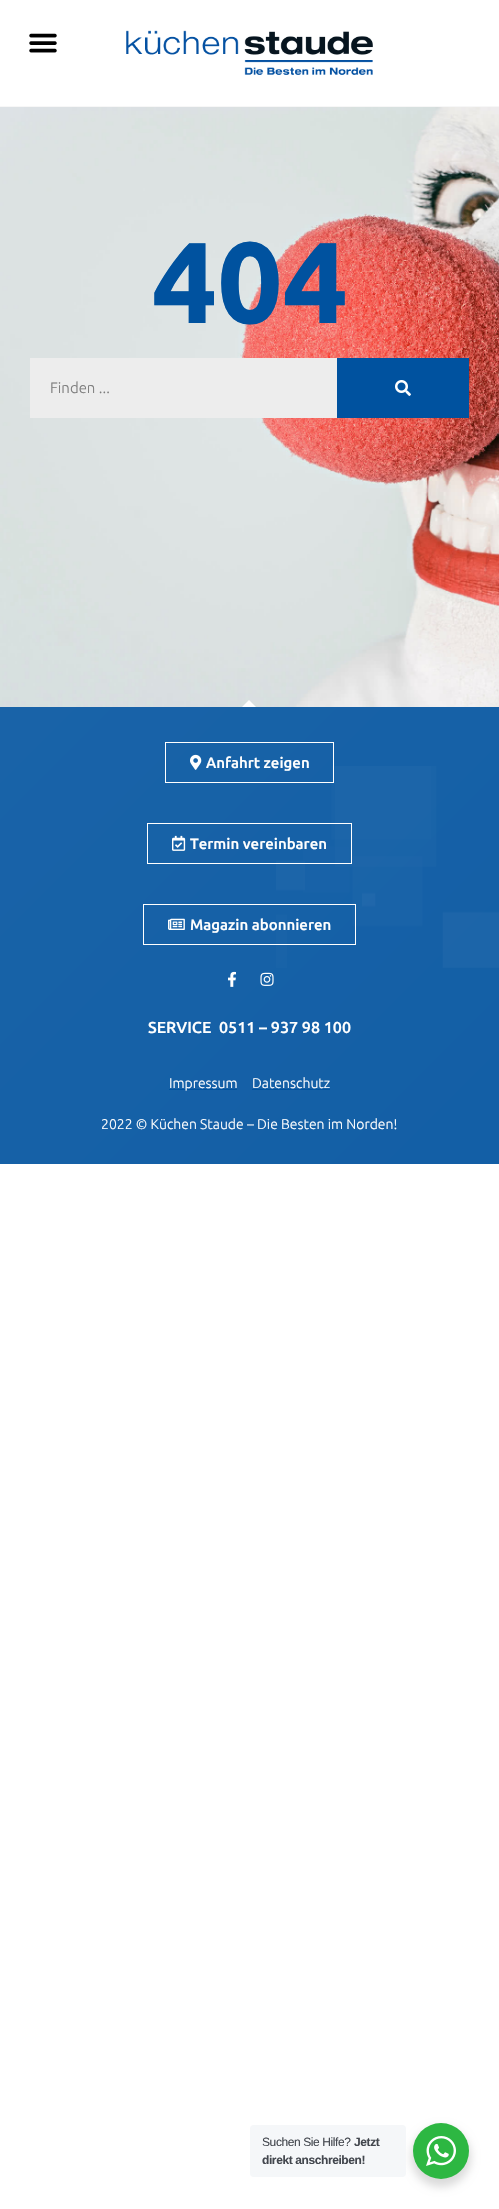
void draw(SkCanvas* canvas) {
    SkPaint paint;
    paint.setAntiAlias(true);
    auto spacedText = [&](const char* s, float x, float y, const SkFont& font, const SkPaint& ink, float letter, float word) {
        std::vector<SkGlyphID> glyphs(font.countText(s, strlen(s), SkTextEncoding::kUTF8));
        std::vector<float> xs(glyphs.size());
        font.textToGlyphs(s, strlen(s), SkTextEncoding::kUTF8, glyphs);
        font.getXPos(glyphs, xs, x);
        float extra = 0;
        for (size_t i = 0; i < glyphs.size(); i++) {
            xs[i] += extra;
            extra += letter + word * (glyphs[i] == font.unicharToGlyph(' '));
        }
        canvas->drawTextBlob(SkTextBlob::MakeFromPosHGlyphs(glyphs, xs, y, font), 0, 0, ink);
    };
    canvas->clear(0xFFFFFFFF);
    paint.setColor(0xFFF7F7F7);
    canvas->drawRect(SkRect::MakeXYWH(0, 106, 499, 1), paint);
    canvas->drawImageRect(SkImages::DeferredFromEncodedData(SkData::MakeFromFileName("img1.png")), SkRect::MakeXYWH(29, 33, 28, 20), SkSamplingOptions());
    canvas->drawImageRect(SkImages::DeferredFromEncodedData(SkData::MakeFromFileName("img2.png")), SkRect::MakeXYWH(126, 30, 247, 45), SkSamplingOptions());
    canvas->drawImageRect(SkImages::DeferredFromEncodedData(SkData::MakeFromFileName("img3.png")), SkRect::MakeXYWH(0, 107, 499, 600), SkSamplingOptions());
    SkFont font1(fontMgr->matchFamilyStyle("Ubuntu", SkFontStyle::Bold()), 115);
    font1.setSubpixel(true);
    paint.setColor(0xFF00529F);
    canvas->drawString("404", 152, 323, font1, paint);
    paint.setColor(0xFFEDEDED);
    canvas->drawRect(SkRect::MakeXYWH(30, 358, 307, 60), paint);
    SkFont font2(fontMgr->matchFamilyStyle("Ubuntu", SkFontStyle(300, SkFontStyle::kNormal_Width, SkFontStyle::kUpright_Slant)), 15);
    font2.setSubpixel(true);
    paint.setColor(0xFF7D7D7D);
    canvas->drawString("Finden ...", 50, 393, font2, paint);
    paint.setColor(0xFF00529F);
    canvas->drawRect(SkRect::MakeXYWH(337, 358, 132, 60), paint);
    canvas->drawImageRect(SkImages::DeferredFromEncodedData(SkData::MakeFromFileName("img4.png")), SkRect::MakeXYWH(395, 380, 16, 16), SkSamplingOptions());
    paint.setColor(0xFFFFFFFF);
    canvas->drawPath(SkPathBuilder().moveTo(249, 700).lineTo(256, 707).lineTo(242, 707).close().detach(), paint);
    {
        const SkColor colors[] = {0xFF00529F, 0xFF1963A8};
        const float stops[] = {0, 1};
        const SkPoint ends[] = {{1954, 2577}, {42, 665}};
        paint.setShader(SkGradientShader::MakeLinear(ends, colors, stops, 2, SkTileMode::kClamp));
        paint.setAlpha(255);
    }
    canvas->drawRect(SkRect::MakeXYWH(0, 707, 499, 457), paint);
    canvas->drawImageRect(SkImages::DeferredFromEncodedData(SkData::MakeFromFileName("img10.png")), SkRect::MakeXYWH(276, 766, 223, 202), SkSamplingOptions());
    paint.setStyle(SkPaint::kStroke_Style);
    paint.setStrokeWidth(1);
    paint.setShader(nullptr);
    paint.setColor(0xFFFFFFFF);
    canvas->drawRect(SkRect::MakeXYWH(165.5f, 742.5f, 168, 40), paint);
    canvas->drawImageRect(SkImages::DeferredFromEncodedData(SkData::MakeFromFileName("img5.png")), SkRect::MakeXYWH(190, 754, 12, 16), SkSamplingOptions());
    SkFont font3(fontMgr->matchFamilyStyle("Ubuntu", SkFontStyle(500, SkFontStyle::kNormal_Width, SkFontStyle::kUpright_Slant)), 15);
    font3.setSubpixel(true);
    paint.setStyle(SkPaint::kFill_Style);
    canvas->drawString("Anfahrt zeigen", 206, 768, font3, paint);
    paint.setStyle(SkPaint::kStroke_Style);
    canvas->drawRect(SkRect::MakeXYWH(147.5f, 823.5f, 204, 40), paint);
    canvas->drawImageRect(SkImages::DeferredFromEncodedData(SkData::MakeFromFileName("img6.png")), SkRect::MakeXYWH(172, 835, 14, 16), SkSamplingOptions());
    paint.setStyle(SkPaint::kFill_Style);
    canvas->drawString("Termin vereinbaren", 190, 849, font3, paint);
    paint.setStyle(SkPaint::kStroke_Style);
    canvas->drawRect(SkRect::MakeXYWH(143.5f, 904.5f, 212, 40), paint);
    canvas->drawImageRect(SkImages::DeferredFromEncodedData(SkData::MakeFromFileName("img7.png")), SkRect::MakeXYWH(168, 918, 17, 12), SkSamplingOptions());
    paint.setStyle(SkPaint::kFill_Style);
    canvas->drawString("Magazin abonnieren", 190, 930, font3, paint);
    canvas->drawImageRect(SkImages::DeferredFromEncodedData(SkData::MakeFromFileName("img8.png")), SkRect::MakeXYWH(228, 971, 8, 16), SkSamplingOptions());
    canvas->drawImageRect(SkImages::DeferredFromEncodedData(SkData::MakeFromFileName("img9.png")), SkRect::MakeXYWH(260, 972, 14, 14), SkSamplingOptions());
    SkFont font4(fontMgr->matchFamilyStyle("Ubuntu", SkFontStyle(500, SkFontStyle::kNormal_Width, SkFontStyle::kUpright_Slant)), 16);
    font4.setSubpixel(true);
    canvas->drawString("SERVICE", 148, 1033, font4, paint);
    canvas->drawString("0511 – 937 98 100", 219, 1033, font4, paint);
    paint.setColor(0xFF00529F);
    canvas->drawRect(SkRect::MakeXYWH(169, 1089, 68, 1), paint);
    SkFont font5(fontMgr->matchFamilyStyle("Ubuntu", SkFontStyle(300, SkFontStyle::kNormal_Width, SkFontStyle::kUpright_Slant)), 14);
    font5.setSubpixel(true);
    paint.setColor(0xFFFFFFFF);
    canvas->drawString("Impressum", 169, 1088, font5, paint);
    canvas->drawString("Datenschutz", 252, 1088, font5, paint);
    paint.setColor(0xFF00529F);
    canvas->drawRect(SkRect::MakeXYWH(252, 1089, 78, 1), paint);
    paint.setColor(0xFFFFFFFF);
    canvas->drawString("2022 © Küchen Staude – Die Besten im Norden!", 101, 1129, font5, paint);
    paint.setColor(0x24000000);
    paint.setMaskFilter(SkMaskFilter::MakeBlur(kNormal_SkBlurStyle, 4));
    canvas->drawRoundRect(SkRect::MakeXYWH(411, 2127, 60, 60), 30, 30, paint);
    paint.setMaskFilter(nullptr);
    paint.setColor(0xFFF5F7F9);
    canvas->drawRoundRect(SkRect::MakeXYWH(250, 2125, 156, 52), 4, 4, paint);
    SkFont font6(fontMgr->matchFamilyStyle("Liberation Sans", SkFontStyle::Normal()), 12);
    font6.setSubpixel(true);
    paint.setColor(0xFF43474E);
    spacedText("Suchen Sie Hilfe?", 262, 2146, font6, paint, -0.4f, 0);
    SkFont font7(fontMgr->matchFamilyStyle("Liberation Sans", SkFontStyle::Bold()), 12);
    font7.setSubpixel(true);
    spacedText("Jetzt", 354, 2146, font7, paint, -0.4f, 0);
    spacedText("direkt anschreiben!", 262, 2164, font7, paint, -0.4f, 0);
    paint.setColor(0xFF2DB742);
    canvas->drawCircle(441, 2151, 28, paint);
    canvas->drawImageRect(SkImages::DeferredFromEncodedData(SkData::MakeFromFileName("img11.png")), SkRect::MakeXYWH(426, 2136, 30, 30), SkSamplingOptions());
}
